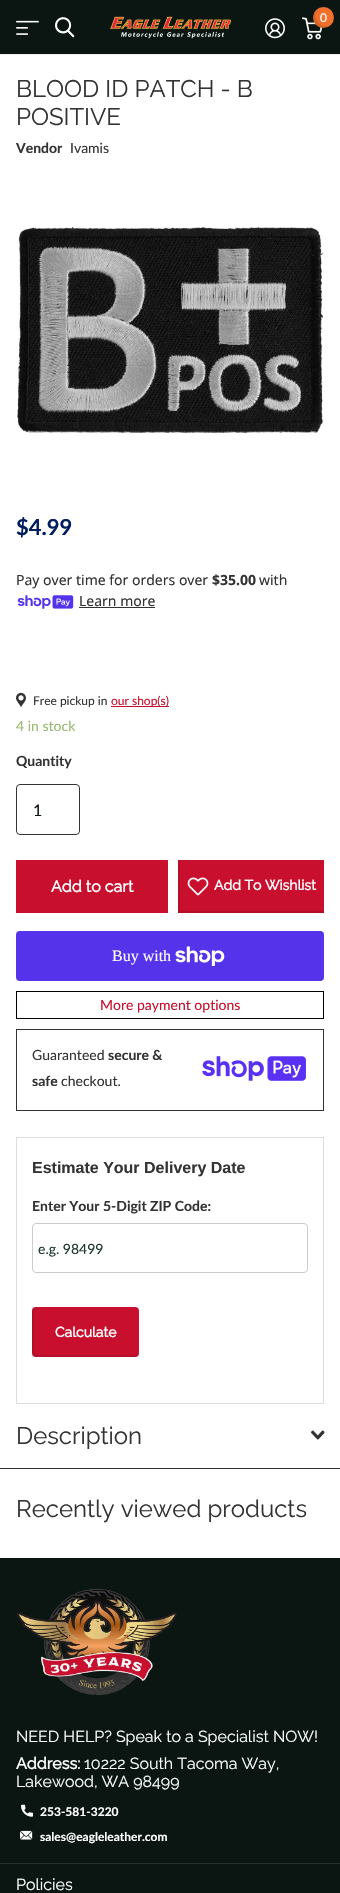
void draw(SkCanvas* canvas) {
    SkPaint paint;
    paint.setAntiAlias(true);
    canvas->clear(0xFFFFFFFF);
    paint.setColor(0xFF0B1613);
    canvas->drawRect(SkRect::MakeXYWH(0, 0, 340, 54), paint);
    paint.setColor(0xFFECEDEC);
    canvas->drawRect(SkRect::MakeXYWH(0, 54, 340, 1), paint);
    canvas->drawImageRect(SkImages::DeferredFromEncodedData(SkData::MakeFromFileName("img1.png")), SkRect::MakeXYWH(16, 20, 23, 15), SkSamplingOptions());
    canvas->drawImageRect(SkImages::DeferredFromEncodedData(SkData::MakeFromFileName("img2.png")), SkRect::MakeXYWH(55, 17, 20, 21), SkSamplingOptions());
    canvas->drawImageRect(SkImages::DeferredFromEncodedData(SkData::MakeFromFileName("img3.png")), SkRect::MakeXYWH(110, 16, 121, 23), SkSamplingOptions());
    canvas->drawImageRect(SkImages::DeferredFromEncodedData(SkData::MakeFromFileName("img4.png")), SkRect::MakeXYWH(265, 18, 20, 21), SkSamplingOptions());
    canvas->drawImageRect(SkImages::DeferredFromEncodedData(SkData::MakeFromFileName("img5.png")), SkRect::MakeXYWH(302, 17, 21, 23), SkSamplingOptions());
    paint.setColor(0xFFF0702C);
    canvas->drawCircle(323.5f, 17.5f, 10.5f, paint);
    paint.setColor(0x1A000000);
    canvas->drawPath(SkPathBuilder().moveTo(331.5f, 24.5f).cubicTo(322, 30.5f, 310.5f, 18, 318, 8.5f).cubicTo(312.5f, 12.5f, 311.5f, 20, 316, 25).cubicTo(320.5f, 29, 327.5f, 29, 331.5f, 24.5f).close().detach(), paint);
    SkFont font1(fontMgr->matchFamilyStyle("Lato", SkFontStyle::Normal()), 12);
    font1.setSubpixel(true);
    paint.setColor(0xFFFFFFFF);
    canvas->drawString("0", 320, 22, font1, paint);
    SkFont font2(fontMgr->matchFamilyStyle("Raleway", SkFontStyle::Normal()), 24);
    font2.setSubpixel(true);
    paint.setColor(0xFF333333);
    canvas->drawString("BLOOD ID PATCH - B", 16, 97, font2, paint);
    canvas->drawString("POSITIVE", 16, 125, font2, paint);
    SkFont font3(fontMgr->matchFamilyStyle("Lato", SkFontStyle::Bold()), 14);
    font3.setSubpixel(true);
    canvas->drawString("Vendor", 16, 153, font3, paint);
    SkFont font4(fontMgr->matchFamilyStyle("Lato", SkFontStyle::Normal()), 14);
    font4.setSubpixel(true);
    canvas->drawString("Ivamis", 70, 153, font4, paint);
    canvas->drawImageRect(SkImages::DeferredFromEncodedData(SkData::MakeFromFileName("img6.png")), SkRect::MakeXYWH(17, 227, 306, 206), SkSamplingOptions());
    SkFont font5(fontMgr->matchFamilyStyle("Lato", SkFontStyle::Bold()), 22);
    font5.setSubpixel(true);
    paint.setColor(0xFF001E60);
    canvas->drawString("$4.99", 16, 535, font5, paint);
    SkFont font6(fontMgr->matchFamilyStyle("Noto Sans", SkFontStyle::Normal()), 14);
    font6.setSubpixel(true);
    paint.setColor(0xFF333333);
    canvas->drawString("Pay over time for orders over", 16, 585, font6, paint);
    SkFont font7(fontMgr->matchFamilyStyle("Noto Sans", SkFontStyle::Bold()), 14);
    font7.setSubpixel(true);
    canvas->drawString("$35.00", 212, 585, font7, paint);
    canvas->drawString("with", 259, 585, font6, paint);
    canvas->drawImageRect(SkImages::DeferredFromEncodedData(SkData::MakeFromFileName("img7.png")), SkRect::MakeXYWH(17, 595, 57, 14), SkSamplingOptions());
    canvas->drawString("Learn more", 79, 606, font6, paint);
    canvas->drawRect(SkRect::MakeXYWH(79, 607, 76, 1), paint);
    canvas->drawImageRect(SkImages::DeferredFromEncodedData(SkData::MakeFromFileName("img8.png")), SkRect::MakeXYWH(16, 692, 10, 15), SkSamplingOptions());
    canvas->drawString("Free pickup in", 33, 705, font1, paint);
    paint.setColor(0xFFC8102E);
    canvas->drawRect(SkRect::MakeXYWH(111, 706, 58, 1), paint);
    canvas->drawString("our shop(s)", 111, 705, font1, paint);
    paint.setColor(0xFF9AB973);
    canvas->drawString("4 in stock", 16, 731, font4, paint);
    paint.setColor(0xFF333333);
    canvas->drawString("Quantity", 16, 766, font3, paint);
    paint.setStyle(SkPaint::kStroke_Style);
    paint.setStrokeWidth(1);
    canvas->drawRoundRect(SkRect::MakeXYWH(16.5f, 784.5f, 63, 50), 3.5f, 3.5f, paint);
    SkFont font8(fontMgr->matchFamilyStyle("Lato", SkFontStyle::Normal()), 16);
    font8.setSubpixel(true);
    paint.setStyle(SkPaint::kFill_Style);
    paint.setColor(0xFF0B1613);
    canvas->drawString("1", 33, 816, font8, paint);
    paint.setColor(0xFFC8102E);
    canvas->drawRect(SkRect::MakeXYWH(16, 860, 152, 53), paint);
    SkFont font9(fontMgr->matchFamilyStyle("Raleway", SkFontStyle::Bold()), 16);
    font9.setSubpixel(true);
    paint.setColor(0xFFFFFFFF);
    canvas->drawString("Add to cart", 51, 892, font9, paint);
    paint.setColor(0xFFC8102E);
    canvas->drawRect(SkRect::MakeXYWH(180, 860, 144, 51), paint);
    canvas->save();
    canvas->clipRect(SkRect::MakeXYWH(178, 860, 146, 53));
    paint.setColor(0xFFB40E29);
    canvas->drawPath(SkPathBuilder(SkPathFillType::kEvenOdd).moveTo(79, 761).lineTo(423, 761).lineTo(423, 1012).lineTo(79, 1012).close().moveTo(180, 858).lineTo(326, 858).lineTo(326, 911).lineTo(180, 911).close().detach(), paint);
    canvas->restore();
    canvas->drawImageRect(SkImages::DeferredFromEncodedData(SkData::MakeFromFileName("img9.png")), SkRect::MakeXYWH(187, 877, 22, 19), SkSamplingOptions());
    SkFont font10(fontMgr->matchFamilyStyle("Raleway", SkFontStyle::Bold()), 14);
    font10.setSubpixel(true);
    paint.setColor(0xFFFFFFFF);
    canvas->drawString("Add To Wishlist", 214, 890, font10, paint);
    paint.setColor(0xFF5433EB);
    canvas->drawRoundRect(SkRect::MakeXYWH(16, 931, 308, 50), 4, 4, paint);
    SkFont font11(fontMgr->matchFamilyStyle("Liberation Serif", SkFontStyle::Normal()), 16);
    font11.setSubpixel(true);
    paint.setColor(0xFFFFFFFF);
    canvas->drawString("Buy with", 112, 961, font11, paint);
    canvas->drawImageRect(SkImages::DeferredFromEncodedData(SkData::MakeFromFileName("img10.png")), SkRect::MakeXYWH(175, 946, 50, 20), SkSamplingOptions());
    paint.setStyle(SkPaint::kStroke_Style);
    paint.setColor(0xFF000000);
    canvas->drawRect(SkRect::MakeXYWH(16.5f, 991.5f, 307, 27), paint);
    paint.setStyle(SkPaint::kFill_Style);
    paint.setColor(0xFFC8102E);
    canvas->drawString("More payment options", 100, 1010, font4, paint);
    paint.setStyle(SkPaint::kStroke_Style);
    paint.setColor(0xFF333333);
    canvas->drawRect(SkRect::MakeXYWH(16.5f, 1029.5f, 307, 81), paint);
    paint.setStyle(SkPaint::kFill_Style);
    canvas->drawString("Guaranteed", 32, 1060, font4, paint);
    canvas->drawString("secure &", 108, 1060, font3, paint);
    canvas->drawString("safe", 32, 1086, font3, paint);
    canvas->drawString("checkout.", 61, 1086, font4, paint);
    canvas->drawImageRect(SkImages::DeferredFromEncodedData(SkData::MakeFromFileName("img11.png")), SkRect::MakeXYWH(202, 1056, 104, 25), SkSamplingOptions());
    paint.setStyle(SkPaint::kStroke_Style);
    paint.setColor(0xFFDDDDDD);
    canvas->drawRect(SkRect::MakeXYWH(16.5f, 1137.5f, 307, 266), paint);
    SkFont font12(fontMgr->matchFamilyStyle("Liberation Sans", SkFontStyle::Bold()), 16);
    font12.setSubpixel(true);
    paint.setStyle(SkPaint::kFill_Style);
    paint.setColor(0xFF333333);
    canvas->drawString("Estimate Your Delivery Date", 32, 1173, font12, paint);
    canvas->drawString("Enter Your 5-Digit ZIP Code:", 32, 1211, font3, paint);
    paint.setStyle(SkPaint::kStroke_Style);
    paint.setColor(0xFFCCCCCC);
    canvas->drawRoundRect(SkRect::MakeXYWH(32.5f, 1223.5f, 275, 49), 3.5f, 3.5f, paint);
    paint.setStyle(SkPaint::kFill_Style);
    paint.setColor(0xFF1C3830);
    canvas->drawString("e.g. 98499", 38, 1254, font4, paint);
    paint.setColor(0xFFC8102E);
    canvas->drawRoundRect(SkRect::MakeXYWH(32, 1307, 107, 50), 4, 4, paint);
    paint.setColor(0x1A000000);
    canvas->drawPath(SkPathBuilder().moveTo(34, 1307).cubicTo(33, 1308, 32, 1309, 32, 1311).lineTo(32, 1353).cubicTo(32, 1355, 34, 1357, 36, 1357).lineTo(135, 1357).cubicTo(137, 1357, 138, 1356, 139, 1355).lineTo(137, 1355).lineTo(38, 1355).cubicTo(36, 1355, 34, 1353, 34, 1351).lineTo(34, 1309).close().detach(), paint);
    paint.setColor(0xFFFFFFFF);
    canvas->drawString("Calculate", 55, 1337, font10, paint);
    paint.setColor(0xFF333333);
    canvas->drawString("Description", 16, 1444, font2, paint);
    canvas->drawImageRect(SkImages::DeferredFromEncodedData(SkData::MakeFromFileName("img12.png")), SkRect::MakeXYWH(311, 1430, 14, 10), SkSamplingOptions());
    canvas->drawRect(SkRect::MakeXYWH(0, 1468, 340, 1), paint);
    canvas->drawString("Recently viewed products", 16, 1517, font2, paint);
    paint.setColor(0xFF0B1613);
    canvas->drawRect(SkRect::MakeXYWH(0, 1558, 340, 335), paint);
    canvas->drawImageRect(SkImages::DeferredFromEncodedData(SkData::MakeFromFileName("img13.png")), SkRect::MakeXYWH(17, 1588, 160, 108), SkSamplingOptions());
    SkFont font13(fontMgr->matchFamilyStyle("Raleway", SkFontStyle::Normal()), 16);
    font13.setSubpixel(true);
    paint.setColor(0xFFFFFFFF);
    canvas->drawString("NEED HELP? Speak to a Specialist NOW!", 16, 1742, font13, paint);
    canvas->drawString("Address:", 16, 1769, font9, paint);
    canvas->drawString("10222 South Tacoma Way,", 84, 1769, font13, paint);
    canvas->drawString("Lakewood, WA 98499", 16, 1787, font13, paint);
    canvas->drawImageRect(SkImages::DeferredFromEncodedData(SkData::MakeFromFileName("img14.png")), SkRect::MakeXYWH(21, 1804, 12, 13), SkSamplingOptions());
    SkFont font14(fontMgr->matchFamilyStyle("Lato", SkFontStyle::Bold()), 12);
    font14.setSubpixel(true);
    canvas->drawString("253-581-3220", 40, 1816, font14, paint);
    canvas->drawImageRect(SkImages::DeferredFromEncodedData(SkData::MakeFromFileName("img15.png")), SkRect::MakeXYWH(20, 1830, 13, 10), SkSamplingOptions());
    canvas->drawString("sales@eagleleather.com", 40, 1841, font14, paint);
    paint.setColor(0xFF232D2B);
    canvas->drawRect(SkRect::MakeXYWH(0, 1863, 340, 1), paint);
    paint.setColor(0xFFFFFFFF);
    canvas->drawString("Policies", 16, 1890, font13, paint);
}
